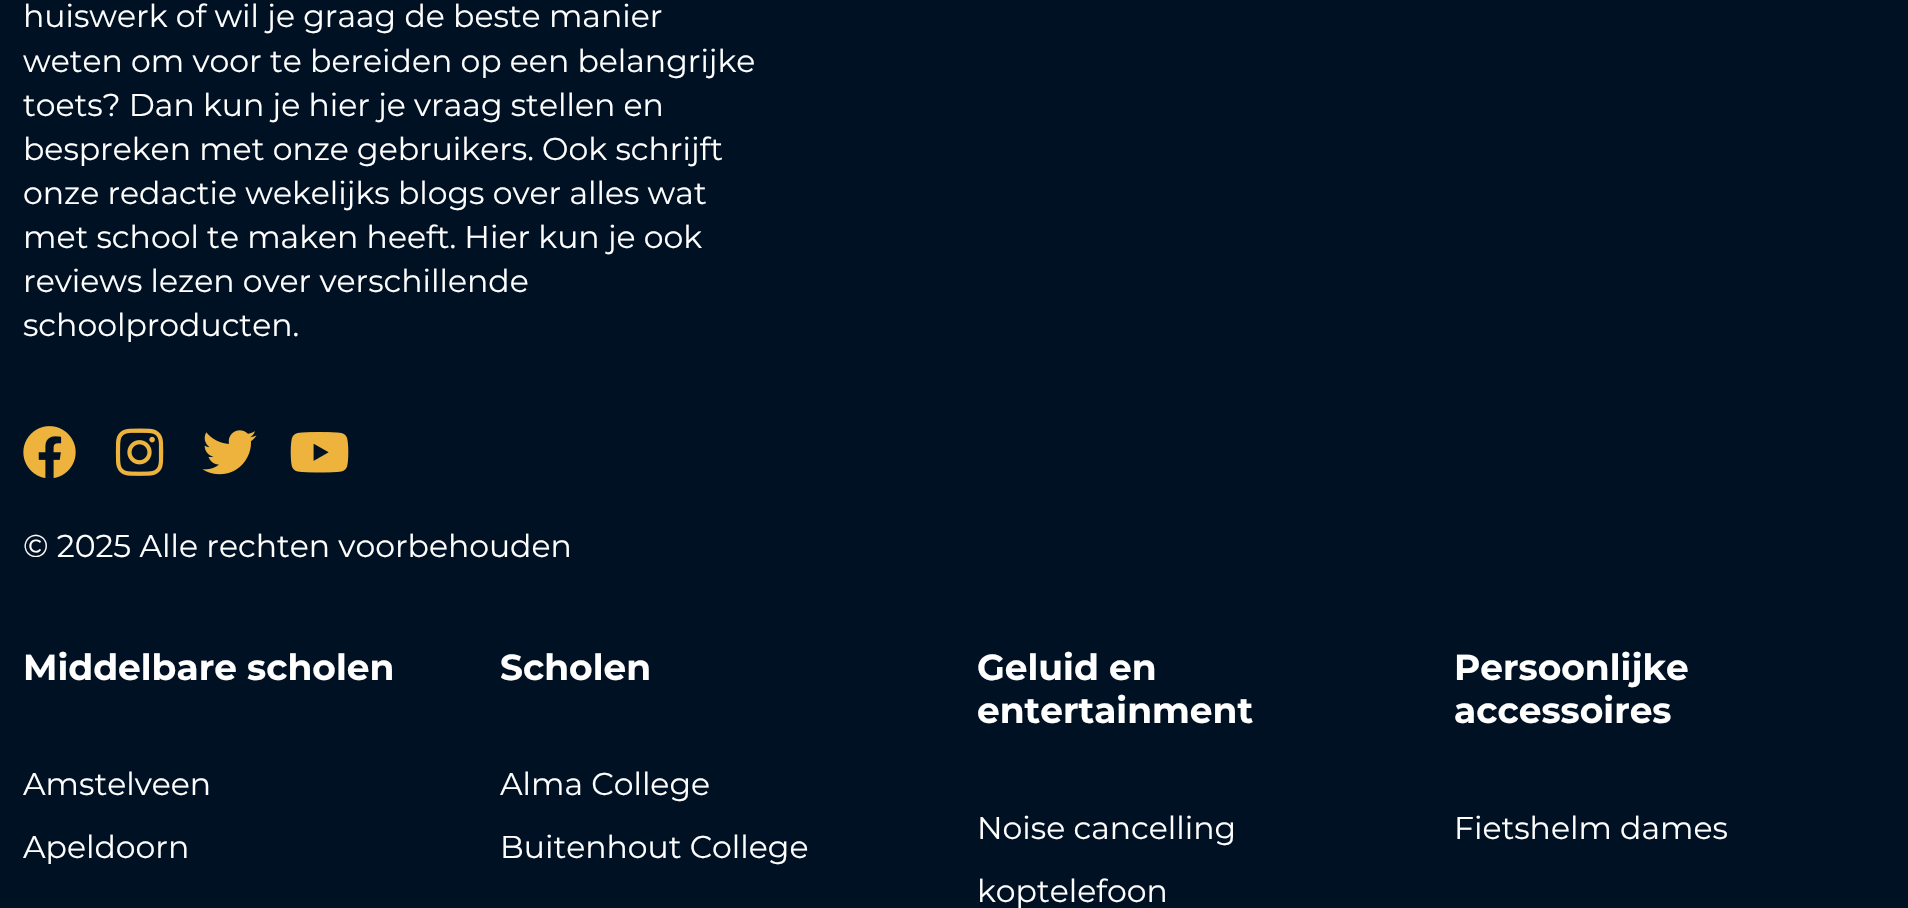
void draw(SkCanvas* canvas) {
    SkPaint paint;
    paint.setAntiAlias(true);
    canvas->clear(0xFF001123);
    SkFont font1(fontMgr->matchFamilyStyle("Montserrat", SkFontStyle::Normal()), 31.5f);
    font1.setSubpixel(true);
    paint.setColor(0xFFFFFFFF);
    canvas->drawString("huiswerk of wil je graag de beste manier", 23, 27, font1, paint);
    canvas->drawString("weten om voor te bereiden op een belangrijke", 23, 72, font1, paint);
    canvas->drawString("toets? Dan kun je hier je vraag stellen en", 23, 116, font1, paint);
    canvas->drawString("bespreken met onze gebruikers. Ook schrijft", 23, 160, font1, paint);
    canvas->drawString("onze redactie wekelijks blogs over alles wat", 23, 204, font1, paint);
    canvas->drawString("met school te maken heeft. Hier kun je ook", 23, 248, font1, paint);
    canvas->drawString("reviews lezen over verschillende", 23, 292, font1, paint);
    canvas->drawString("schoolproducten.", 23, 336, font1, paint);
    canvas->drawImageRect(SkImages::DeferredFromEncodedData(SkData::MakeFromFileName("img1.png")), SkRect::MakeXYWH(23, 426, 53, 52), SkSamplingOptions());
    canvas->drawImageRect(SkImages::DeferredFromEncodedData(SkData::MakeFromFileName("img2.png")), SkRect::MakeXYWH(115, 428, 49, 48), SkSamplingOptions());
    canvas->drawImageRect(SkImages::DeferredFromEncodedData(SkData::MakeFromFileName("img3.png")), SkRect::MakeXYWH(202, 430, 55, 45), SkSamplingOptions());
    canvas->drawImageRect(SkImages::DeferredFromEncodedData(SkData::MakeFromFileName("img4.png")), SkRect::MakeXYWH(290, 432, 59, 41), SkSamplingOptions());
    canvas->drawString("© 2025 Alle rechten voorbehouden", 23, 557, font1, paint);
    SkFont font2(fontMgr->matchFamilyStyle("Montserrat", SkFontStyle::Bold()), 36);
    font2.setSubpixel(true);
    canvas->drawString("Middelbare scholen", 23, 680, font2, paint);
    canvas->drawString("Amstelveen", 23, 795, font1, paint);
    canvas->drawString("Apeldoorn", 23, 858, font1, paint);
    canvas->drawString("Scholen", 500, 680, font2, paint);
    canvas->drawString("Alma College", 500, 795, font1, paint);
    canvas->drawString("Buitenhout College", 500, 858, font1, paint);
    canvas->drawString("Geluid en", 977, 680, font2, paint);
    canvas->drawString("entertainment", 977, 723, font2, paint);
    canvas->drawString("Noise cancelling", 977, 839, font1, paint);
    canvas->drawString("koptelefoon", 977, 902, font1, paint);
    canvas->drawString("Persoonlijke", 1454, 680, font2, paint);
    canvas->drawString("accessoires", 1454, 723, font2, paint);
    canvas->drawString("Fietshelm dames", 1454, 839, font1, paint);
}
